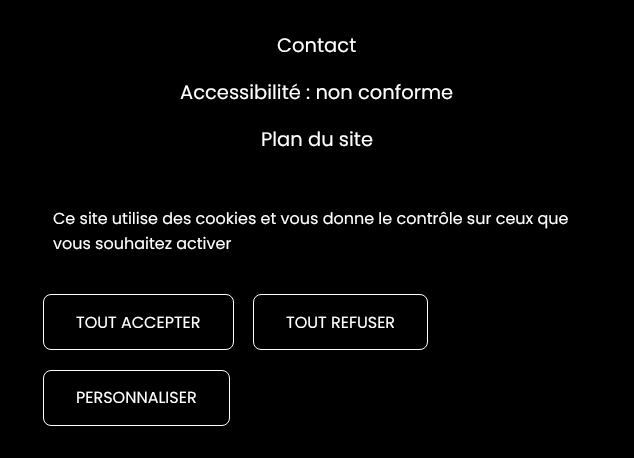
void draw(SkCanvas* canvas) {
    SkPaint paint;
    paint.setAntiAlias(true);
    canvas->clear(0xFF000000);
    SkFont font1(fontMgr->matchFamilyStyle("Poppins", SkFontStyle::Normal()), 19.5f);
    font1.setSubpixel(true);
    paint.setColor(0xFFFFFFFF);
    canvas->drawString("Contact", 277, 52, font1, paint);
    canvas->drawString("Accessibilité : non conforme", 180, 99, font1, paint);
    canvas->drawString("Plan du site", 261, 146, font1, paint);
    SkFont font2(fontMgr->matchFamilyStyle("Poppins", SkFontStyle::Normal()), 16);
    font2.setSubpixel(true);
    canvas->drawString("Ce site utilise des cookies et vous donne le contrôle sur ceux que", 53, 224, font2, paint);
    canvas->drawString("vous souhaitez activer", 53, 249, font2, paint);
    paint.setStyle(SkPaint::kStroke_Style);
    paint.setStrokeWidth(1);
    canvas->drawRoundRect(SkRect::MakeXYWH(43.5f, 294.5f, 190, 55), 7.5f, 7.5f, paint);
    paint.setStyle(SkPaint::kFill_Style);
    canvas->drawString("TOUT ACCEPTER", 76, 328, font2, paint);
    paint.setStyle(SkPaint::kStroke_Style);
    canvas->drawRoundRect(SkRect::MakeXYWH(253.5f, 294.5f, 174, 55), 7.5f, 7.5f, paint);
    paint.setStyle(SkPaint::kFill_Style);
    canvas->drawString("TOUT REFUSER", 286, 328, font2, paint);
    paint.setStyle(SkPaint::kStroke_Style);
    canvas->drawRoundRect(SkRect::MakeXYWH(43.5f, 370.5f, 186, 55), 7.5f, 7.5f, paint);
    paint.setStyle(SkPaint::kFill_Style);
    canvas->drawString("PERSONNALISER", 76, 403, font2, paint);
}
